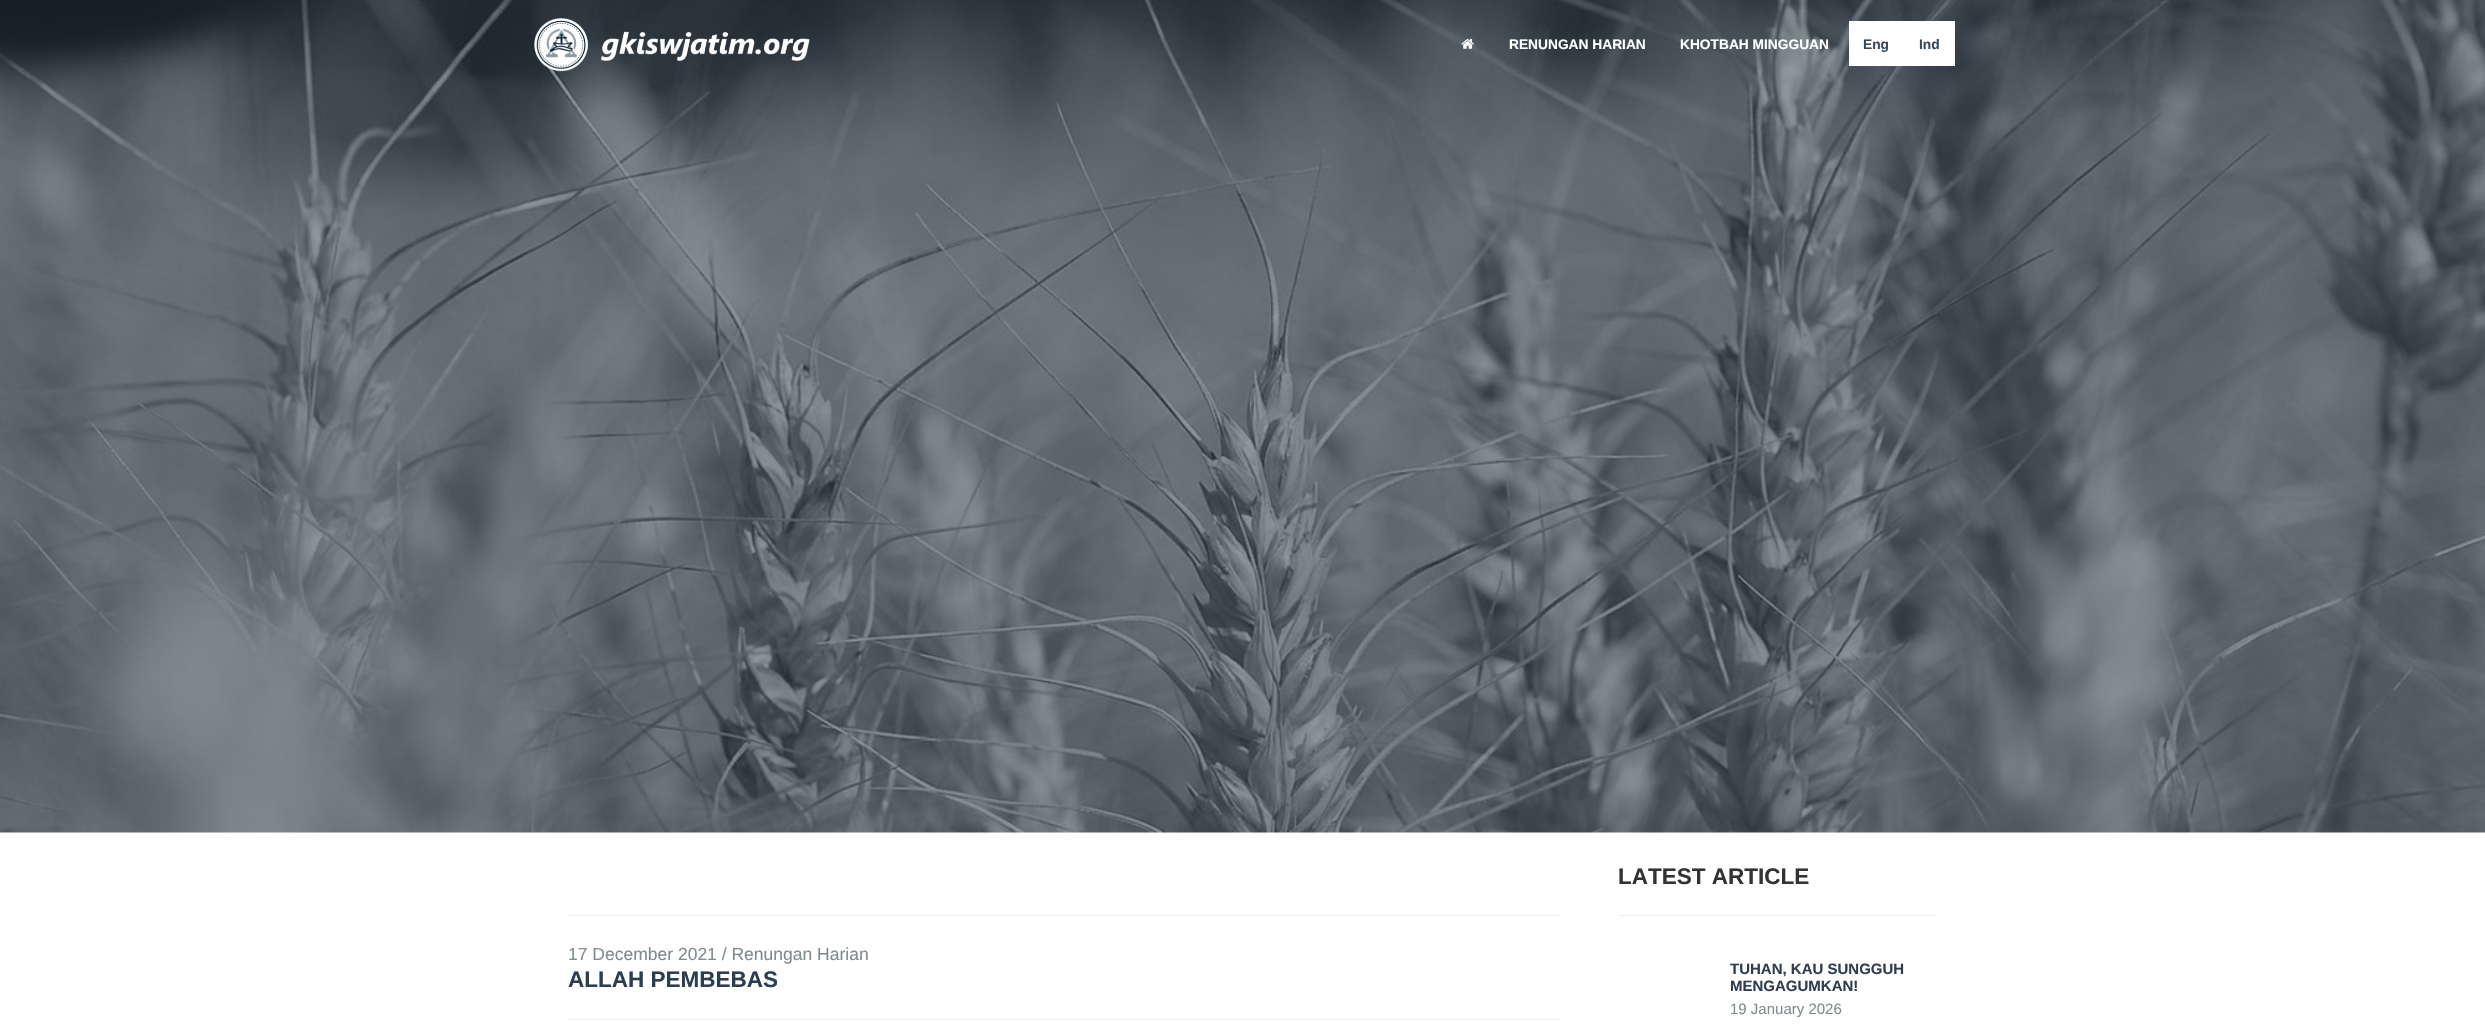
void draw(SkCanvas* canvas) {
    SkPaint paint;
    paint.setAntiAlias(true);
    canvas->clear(0xFFFFFFFF);
    canvas->drawImageRect(SkImages::DeferredFromEncodedData(SkData::MakeFromFileName("img1.png")), SkRect::MakeXYWH(0, 0, 2485, 833), SkSamplingOptions());
    canvas->drawImageRect(SkImages::DeferredFromEncodedData(SkData::MakeFromFileName("img2.png")), SkRect::MakeXYWH(534, 18, 276, 54), SkSamplingOptions());
    canvas->drawImageRect(SkImages::DeferredFromEncodedData(SkData::MakeFromFileName("img3.png")), SkRect::MakeXYWH(1461, 38, 13, 11), SkSamplingOptions());
    SkFont font1(fontMgr->matchFamilyStyle("Liberation Sans", SkFontStyle::Bold()), 13.75f);
    font1.setSubpixel(true);
    paint.setColor(0xFFFFFFFF);
    canvas->drawString("RENUNGAN HARIAN", 1509, 49, font1, paint);
    canvas->drawString("KHOTBAH MINGGUAN", 1680, 49, font1, paint);
    canvas->drawRect(SkRect::MakeXYWH(1849, 21, 106, 45), paint);
    paint.setColor(0xFF34495E);
    canvas->drawString("Eng", 1863, 49, font1, paint);
    canvas->drawString("Ind", 1919, 49, font1, paint);
    paint.setColor(0xFFEEEEEE);
    canvas->drawRect(SkRect::MakeXYWH(568, 915, 993, 1), paint);
    SkFont font2(fontMgr->matchFamilyStyle("Liberation Sans", SkFontStyle::Normal()), 17.5f);
    font2.setSubpixel(true);
    paint.setColor(0xFF7F8C8D);
    canvas->drawString("17 December 2021 / Renungan Harian", 568, 960, font2, paint);
    SkFont font3(fontMgr->matchFamilyStyle("Liberation Sans", SkFontStyle::Bold()), 22.5f);
    font3.setSubpixel(true);
    paint.setColor(0xFF2C3E50);
    canvas->drawString("ALLAH PEMBEBAS", 568, 987, font3, paint);
    paint.setColor(0xFFEEEEEE);
    canvas->drawRect(SkRect::MakeXYWH(568, 1019, 993, 1), paint);
    paint.setColor(0xFF333333);
    canvas->drawString("LATEST ARTICLE", 1618, 884, font3, paint);
    paint.setColor(0xFFECF0F1);
    canvas->drawRect(SkRect::MakeXYWH(1618, 915, 318, 1), paint);
    SkFont font4(fontMgr->matchFamilyStyle("Liberation Sans", SkFontStyle::Bold()), 15);
    font4.setSubpixel(true);
    paint.setColor(0xFF2C3E50);
    canvas->drawString("TUHAN, KAU SUNGGUH", 1730, 974, font4, paint);
    canvas->drawString("MENGAGUMKAN!", 1730, 991, font4, paint);
    SkFont font5(fontMgr->matchFamilyStyle("Liberation Sans", SkFontStyle::Normal()), 15);
    font5.setSubpixel(true);
    paint.setColor(0xFF7F8C8D);
    canvas->drawString("19 January 2026", 1730, 1014, font5, paint);
}
